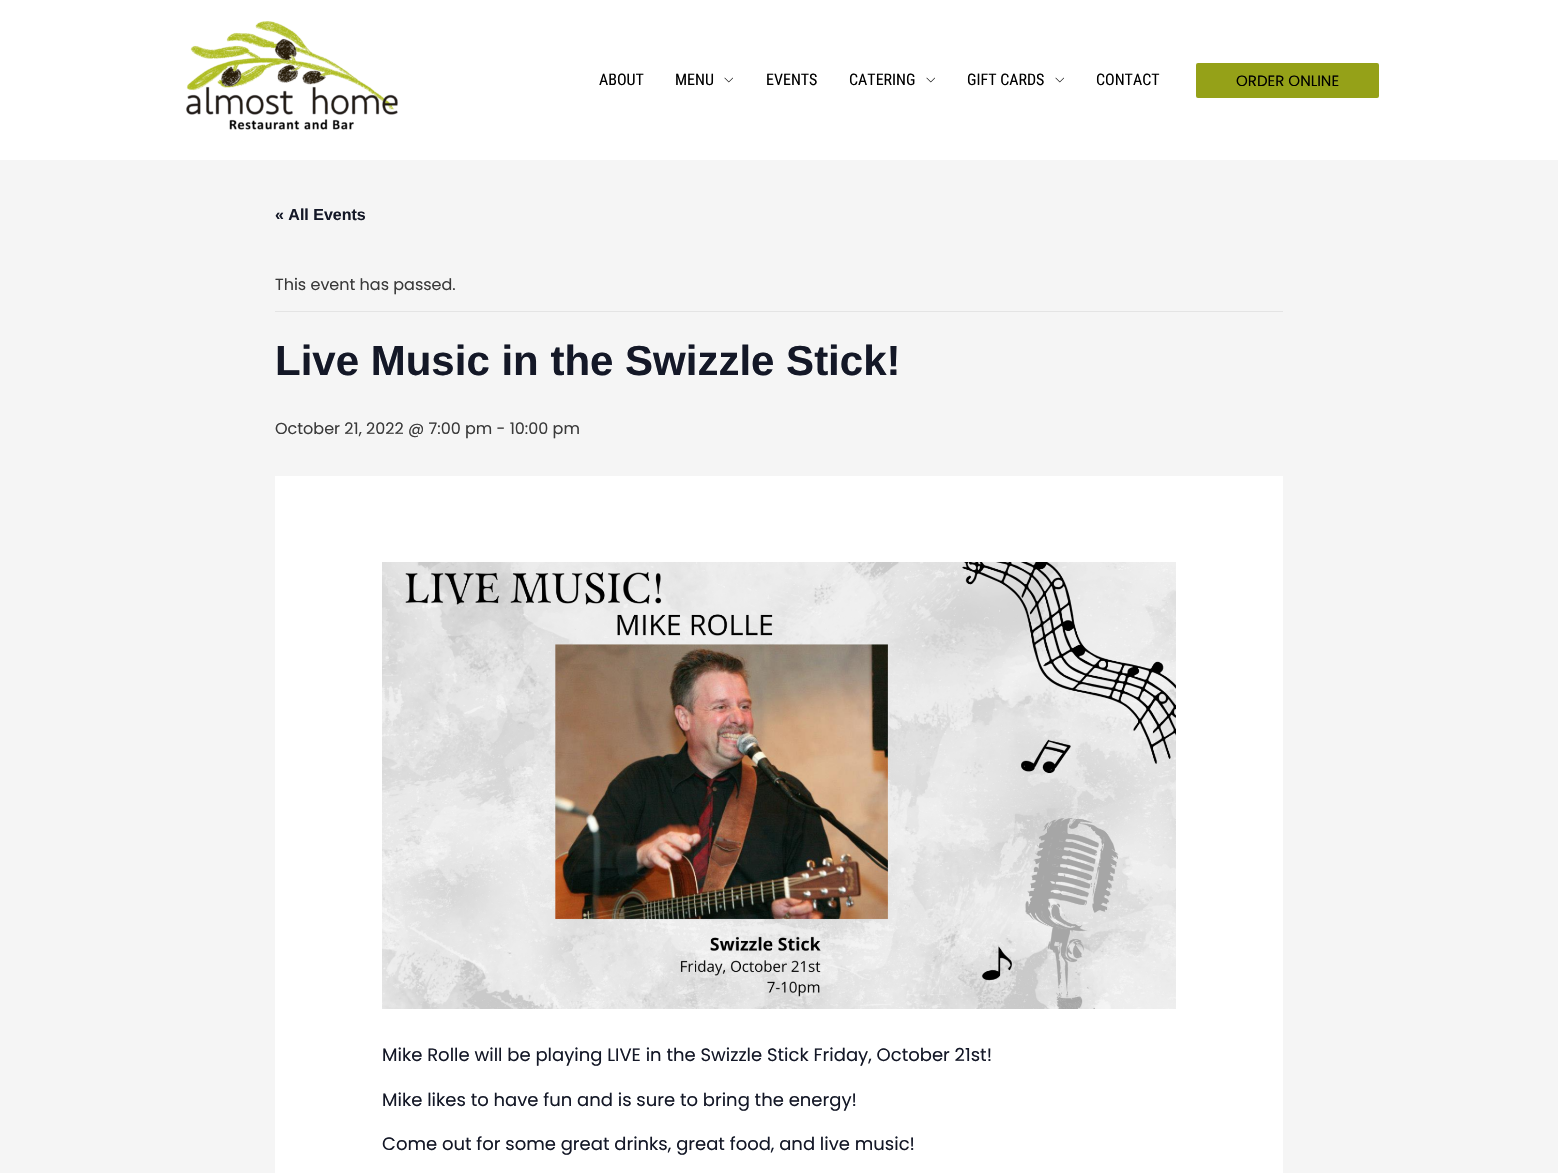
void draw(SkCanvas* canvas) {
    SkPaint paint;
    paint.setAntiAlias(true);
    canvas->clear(0xFFF5F5F5);
    paint.setColor(0xFFFFFFFF);
    canvas->drawRect(SkRect::MakeXYWH(0, 0, 1558, 160), paint);
    canvas->drawImageRect(SkImages::DeferredFromEncodedData(SkData::MakeFromFileName("img1.png")), SkRect::MakeXYWH(186, 21, 212, 109), SkSamplingOptions());
    SkFont font1(fontMgr->matchFamilyStyle("Roboto Condensed", SkFontStyle::Normal()), 16);
    font1.setSubpixel(true);
    paint.setColor(0xFF000000);
    canvas->drawString("ABOUT", 599, 85, font1, paint);
    canvas->drawString("MENU", 675, 85, font1, paint);
    canvas->drawImageRect(SkImages::DeferredFromEncodedData(SkData::MakeFromFileName("img2.png")), SkRect::MakeXYWH(724, 77, 9, 6), SkSamplingOptions());
    canvas->drawString("EVENTS", 766, 85, font1, paint);
    canvas->drawString("CATERING", 849, 85, font1, paint);
    canvas->drawImageRect(SkImages::DeferredFromEncodedData(SkData::MakeFromFileName("img2.png")), SkRect::MakeXYWH(926, 77, 9, 6), SkSamplingOptions());
    canvas->drawString("GIFT CARDS", 967, 85, font1, paint);
    canvas->drawImageRect(SkImages::DeferredFromEncodedData(SkData::MakeFromFileName("img2.png")), SkRect::MakeXYWH(1055, 77, 9, 6), SkSamplingOptions());
    canvas->drawString("CONTACT", 1096, 85, font1, paint);
    paint.setColor(0xFF95A118);
    canvas->drawRoundRect(SkRect::MakeXYWH(1196, 63, 183, 35), 2, 2, paint);
    SkFont font2(fontMgr->matchFamilyStyle("Poppins", SkFontStyle::Normal()), 15);
    font2.setSubpixel(true);
    paint.setColor(0xFF000000);
    canvas->drawString("ORDER ONLINE", 1236, 86, font2, paint);
    SkFont font3(fontMgr->matchFamilyStyle("Liberation Sans", SkFontStyle::Bold()), 16);
    font3.setSubpixel(true);
    paint.setColor(0xFF141827);
    canvas->drawString("« All Events", 275, 220, font3, paint);
    paint.setColor(0xFFE4E4E4);
    canvas->drawRect(SkRect::MakeXYWH(275, 311, 1008, 1), paint);
    SkFont font4(fontMgr->matchFamilyStyle("Poppins", SkFontStyle::Normal()), 16);
    font4.setSubpixel(true);
    paint.setColor(0xFF3A3A3A);
    canvas->drawString("This event has passed.", 275, 290, font4, paint);
    SkFont font5(fontMgr->matchFamilyStyle("Liberation Sans", SkFontStyle::Bold()), 42);
    font5.setSubpixel(true);
    paint.setColor(0xFF141827);
    canvas->drawString("Live Music in the Swizzle Stick!", 275, 375, font5, paint);
    paint.setColor(0xFF3A3A3A);
    canvas->drawString("October 21, 2022 @ 7:00 pm - 10:00 pm", 275, 434, font4, paint);
    paint.setColor(0xFFFFFFFF);
    canvas->drawRect(SkRect::MakeXYWH(275, 476, 1008, 697), paint);
    canvas->drawImageRect(SkImages::DeferredFromEncodedData(SkData::MakeFromFileName("img3.png")), SkRect::MakeXYWH(382, 562, 794, 447), SkSamplingOptions());
    SkFont font6(fontMgr->matchFamilyStyle("Poppins", SkFontStyle::Normal()), 18);
    font6.setSubpixel(true);
    paint.setColor(0xFF141827);
    canvas->drawString("Mike Rolle will be playing LIVE in the Swizzle Stick Friday, October 21st!", 382, 1061, font6, paint);
    canvas->drawString("Mike likes to have fun and is sure to bring the energy!", 382, 1106, font6, paint);
    canvas->drawString("Come out for some great drinks, great food, and live music!", 382, 1150, font6, paint);
}
